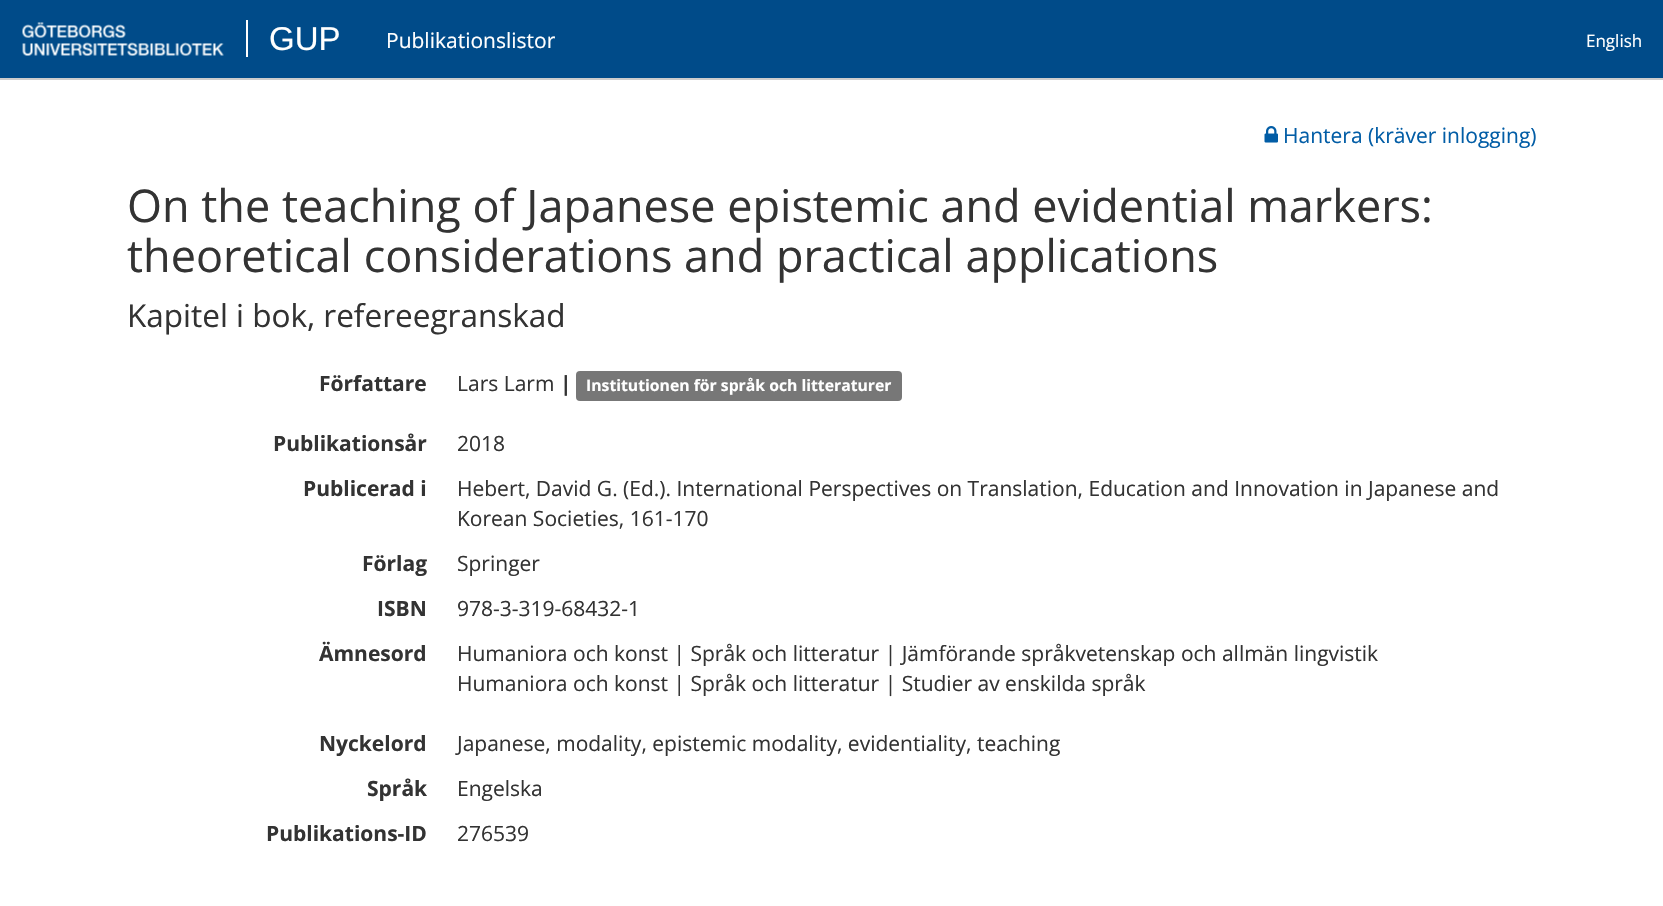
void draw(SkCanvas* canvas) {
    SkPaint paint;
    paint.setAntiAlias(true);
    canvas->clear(0xFFFFFFFF);
    paint.setColor(0xFF004B89);
    canvas->drawRect(SkRect::MakeXYWH(0, 0, 1663, 78), paint);
    paint.setColor(0xFFCCCCCC);
    canvas->drawRect(SkRect::MakeXYWH(0, 78, 1663, 2), paint);
    canvas->drawImageRect(SkImages::DeferredFromEncodedData(SkData::MakeFromFileName("img1.png")), SkRect::MakeXYWH(22, 22, 202, 34), SkSamplingOptions());
    paint.setColor(0xFFFFFFFF);
    canvas->drawRect(SkRect::MakeXYWH(246, 20, 2, 37), paint);
    SkFont font1(fontMgr->matchFamilyStyle("Liberation Sans", SkFontStyle::Normal()), 33);
    font1.setSubpixel(true);
    canvas->drawString("GUP", 269, 50, font1, paint);
    SkFont font2(fontMgr->matchFamilyStyle("Open Sans", SkFontStyle::Normal()), 21);
    font2.setSubpixel(true);
    canvas->drawString("Publikationslistor", 386, 48, font2, paint);
    SkFont font3(fontMgr->matchFamilyStyle("Open Sans", SkFontStyle::Normal()), 17);
    font3.setSubpixel(true);
    canvas->drawString("English", 1586, 47, font3, paint);
    canvas->drawImageRect(SkImages::DeferredFromEncodedData(SkData::MakeFromFileName("img2.png")), SkRect::MakeXYWH(1264, 126, 14, 17), SkSamplingOptions());
    paint.setColor(0xFF025DA6);
    canvas->drawString("Hantera (kräver inlogging)", 1283, 143, font2, paint);
    SkFont font4(fontMgr->matchFamilyStyle("Open Sans", SkFontStyle::Normal()), 45);
    font4.setSubpixel(true);
    paint.setColor(0xFF333333);
    canvas->drawString("On the teaching of Japanese epistemic and evidential markers:", 127, 222, font4, paint);
    canvas->drawString("theoretical considerations and practical applications", 127, 272, font4, paint);
    SkFont font5(fontMgr->matchFamilyStyle("Open Sans", SkFontStyle::Normal()), 31.5f);
    font5.setSubpixel(true);
    canvas->drawString("Kapitel i bok, refereegranskad", 127, 327, font5, paint);
    SkFont font6(fontMgr->matchFamilyStyle("Open Sans", SkFontStyle::Bold()), 21);
    font6.setSubpixel(true);
    canvas->drawString("Författare", 319, 391, font6, paint);
    canvas->drawString("Lars Larm", 457, 391, font2, paint);
    canvas->drawString("|", 560, 391, font6, paint);
    paint.setColor(0xFF777777);
    canvas->drawRoundRect(SkRect::MakeXYWH(576, 371, 326, 30), 4, 4, paint);
    SkFont font7(fontMgr->matchFamilyStyle("Open Sans", SkFontStyle::Bold()), 15.75f);
    font7.setSubpixel(true);
    paint.setColor(0xFFFFFFFF);
    canvas->drawString("Institutionen för språk och litteraturer", 586, 391, font7, paint);
    paint.setColor(0xFF333333);
    canvas->drawString("Publikationsår", 273, 451, font6, paint);
    canvas->drawString("2018", 457, 451, font2, paint);
    canvas->drawString("Publicerad i", 303, 496, font6, paint);
    canvas->drawString("Hebert, David G. (Ed.). International Perspectives on Translation, Education and Innovation in Japanese and", 457, 496, font2, paint);
    canvas->drawString("Korean Societies, 161-170", 457, 526, font2, paint);
    canvas->drawString("Förlag", 362, 571, font6, paint);
    canvas->drawString("Springer", 457, 571, font2, paint);
    canvas->drawString("ISBN", 377, 616, font6, paint);
    canvas->drawString("978-3-319-68432-1", 457, 616, font2, paint);
    canvas->drawString("Ämnesord", 319, 661, font6, paint);
    canvas->drawString("Humaniora och konst | Språk och litteratur | Jämförande språkvetenskap och allmän lingvistik", 457, 661, font2, paint);
    canvas->drawString("Humaniora och konst | Språk och litteratur | Studier av enskilda språk", 457, 691, font2, paint);
    canvas->drawString("Nyckelord", 319, 751, font6, paint);
    canvas->drawString("Japanese, modality, epistemic modality, evidentiality, teaching", 457, 751, font2, paint);
    canvas->drawString("Språk", 367, 796, font6, paint);
    canvas->drawString("Engelska", 457, 796, font2, paint);
    canvas->drawString("Publikations-ID", 266, 841, font6, paint);
    canvas->drawString("276539", 457, 841, font2, paint);
}
